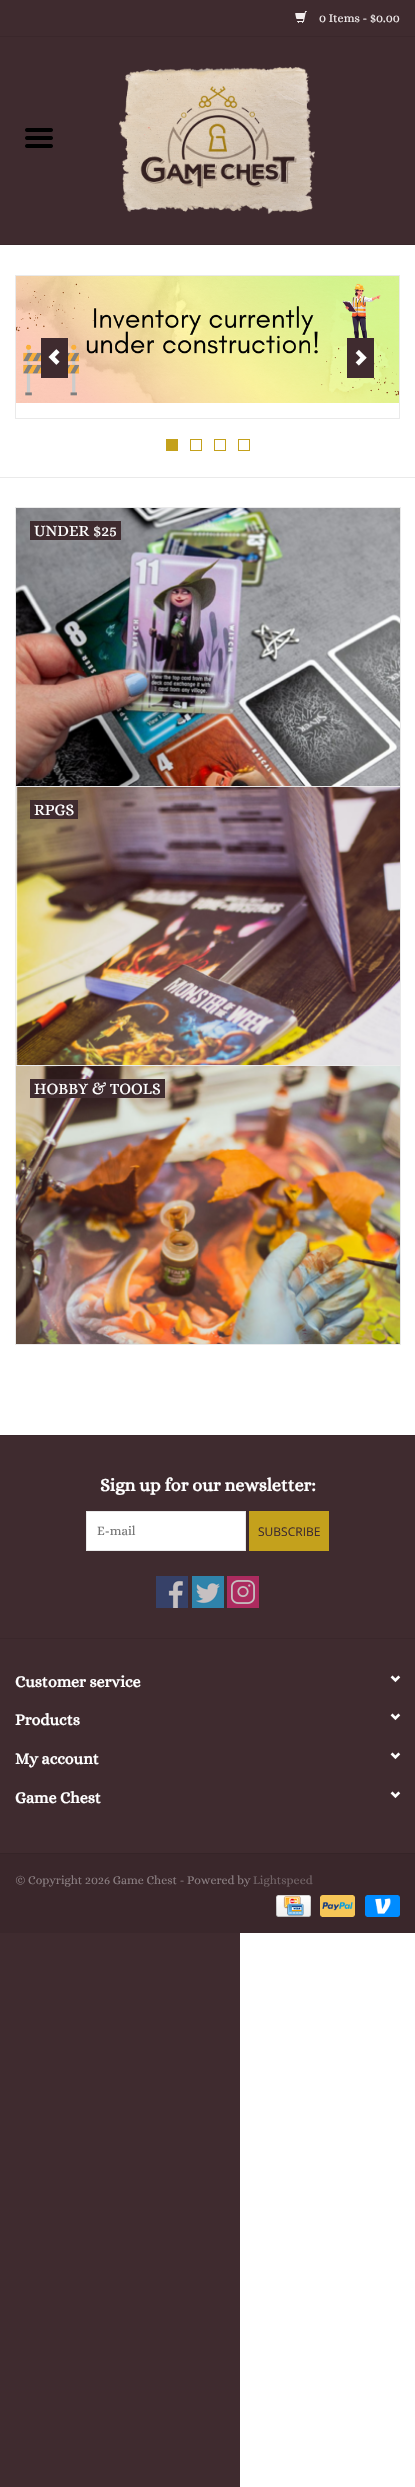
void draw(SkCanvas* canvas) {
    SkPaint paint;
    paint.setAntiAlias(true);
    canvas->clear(0xFFFFFFFF);
    paint.setColor(0xFF3F2B2F);
    canvas->drawRect(SkRect::MakeXYWH(0, 0, 415, 36), paint);
    paint.setColor(0xFF3A272B);
    canvas->drawRect(SkRect::MakeXYWH(0, 36, 415, 1), paint);
    canvas->drawImageRect(SkImages::DeferredFromEncodedData(SkData::MakeFromFileName("img1.png")), SkRect::MakeXYWH(295, 11, 12, 12), SkSamplingOptions());
    SkFont font1(fontMgr->matchFamilyStyle("Alice", SkFontStyle::Normal()), 12);
    font1.setSubpixel(true);
    paint.setColor(0xFFF2EDED);
    canvas->drawString("0 Items - $0.00", 319, 22, font1, paint);
    paint.setColor(0xFF3F2B2F);
    canvas->drawRect(SkRect::MakeXYWH(0, 37, 415, 207), paint);
    paint.setColor(0xFF39272B);
    canvas->drawRect(SkRect::MakeXYWH(0, 244, 415, 1), paint);
    canvas->drawImageRect(SkImages::DeferredFromEncodedData(SkData::MakeFromFileName("img2.png")), SkRect::MakeXYWH(119, 67, 196, 147), SkSamplingOptions());
    canvas->drawImageRect(SkImages::DeferredFromEncodedData(SkData::MakeFromFileName("img3.png")), SkRect::MakeXYWH(25, 128, 28, 20), SkSamplingOptions());
    paint.setColor(0xFF3F2B2F);
    canvas->drawRect(SkRect::MakeXYWH(0, 1933, 240, 554), paint);
    paint.setStyle(SkPaint::kStroke_Style);
    paint.setStrokeWidth(1);
    paint.setColor(0xFFEAEAEA);
    canvas->drawRect(SkRect::MakeXYWH(15.5f, 275.5f, 384, 143), paint);
    canvas->drawImageRect(SkImages::DeferredFromEncodedData(SkData::MakeFromFileName("img4.png")), SkRect::MakeXYWH(16, 276, 383, 127), SkSamplingOptions());
    paint.setStyle(SkPaint::kFill_Style);
    paint.setColor(0xFF3F2B2F);
    canvas->drawRect(SkRect::MakeXYWH(41, 338, 27, 40), paint);
    canvas->drawImageRect(SkImages::DeferredFromEncodedData(SkData::MakeFromFileName("img5.png")), SkRect::MakeXYWH(48, 349, 12, 16), SkSamplingOptions());
    canvas->drawRect(SkRect::MakeXYWH(347, 338, 27, 40), paint);
    canvas->drawImageRect(SkImages::DeferredFromEncodedData(SkData::MakeFromFileName("img6.png")), SkRect::MakeXYWH(355, 349, 12, 17), SkSamplingOptions());
    paint.setColor(0xFFC4A11C);
    canvas->drawRect(SkRect::MakeXYWH(166, 439, 12, 12), paint);
    paint.setStyle(SkPaint::kStroke_Style);
    canvas->drawRect(SkRect::MakeXYWH(190.5f, 439.5f, 11, 11), paint);
    canvas->drawRect(SkRect::MakeXYWH(214.5f, 439.5f, 11, 11), paint);
    canvas->drawRect(SkRect::MakeXYWH(238.5f, 439.5f, 11, 11), paint);
    paint.setStyle(SkPaint::kFill_Style);
    paint.setColor(0xFFEAEAEA);
    canvas->drawRect(SkRect::MakeXYWH(0, 477, 415, 1), paint);
    paint.setStyle(SkPaint::kStroke_Style);
    canvas->drawRect(SkRect::MakeXYWH(15.5f, 507.5f, 385, 279), paint);
    canvas->drawImageRect(SkImages::DeferredFromEncodedData(SkData::MakeFromFileName("img7.png")), SkRect::MakeXYWH(16, 508, 384, 278), SkSamplingOptions());
    paint.setStyle(SkPaint::kFill_Style);
    paint.setColor(0xFF3F2B2F);
    canvas->drawRect(SkRect::MakeXYWH(30, 521, 87, 19), paint);
    SkFont font2(fontMgr->matchFamilyStyle("Alice", SkFontStyle::Normal()), 16);
    font2.setSubpixel(true);
    paint.setColor(0xFFFFFFFF);
    canvas->drawString("UNDER $25", 34, 536, font2, paint);
    paint.setColor(0xFF3F2B2F);
    canvas->drawRect(SkRect::MakeXYWH(117, 521, 4, 19), paint);
    paint.setStyle(SkPaint::kStroke_Style);
    paint.setColor(0xFFEAEAEA);
    canvas->drawRect(SkRect::MakeXYWH(15.5f, 786.5f, 385, 279), paint);
    canvas->drawImageRect(SkImages::DeferredFromEncodedData(SkData::MakeFromFileName("img8.png")), SkRect::MakeXYWH(16, 787, 384, 278), SkSamplingOptions());
    paint.setStyle(SkPaint::kFill_Style);
    paint.setColor(0xFF3F2B2F);
    canvas->drawRect(SkRect::MakeXYWH(30, 800, 44, 19), paint);
    paint.setColor(0xFFFFFFFF);
    canvas->drawString("RPGS", 34, 815, font2, paint);
    paint.setColor(0xFF3F2B2F);
    canvas->drawRect(SkRect::MakeXYWH(74, 800, 4, 19), paint);
    paint.setStyle(SkPaint::kStroke_Style);
    paint.setColor(0xFFEAEAEA);
    canvas->drawRect(SkRect::MakeXYWH(15.5f, 1065.5f, 385, 279), paint);
    canvas->drawImageRect(SkImages::DeferredFromEncodedData(SkData::MakeFromFileName("img9.png")), SkRect::MakeXYWH(16, 1066, 384, 278), SkSamplingOptions());
    paint.setStyle(SkPaint::kFill_Style);
    paint.setColor(0xFF3F2B2F);
    canvas->drawRect(SkRect::MakeXYWH(30, 1079, 131, 19), paint);
    paint.setColor(0xFFFFFFFF);
    canvas->drawString("HOBBY & TOOLS", 34, 1094, font2, paint);
    paint.setColor(0xFF3F2B2F);
    canvas->drawRect(SkRect::MakeXYWH(161, 1079, 4, 19), paint);
    canvas->drawRect(SkRect::MakeXYWH(0, 1436, 415, 417), paint);
    paint.setColor(0xFF3A272B);
    canvas->drawRect(SkRect::MakeXYWH(0, 1435, 415, 1), paint);
    SkFont font3(fontMgr->matchFamilyStyle("Alice", SkFontStyle::Bold()), 18);
    font3.setSubpixel(true);
    paint.setColor(0xFFFFFFFF);
    canvas->drawString("Sign up for our newsletter:", 100, 1491, font3, paint);
    canvas->drawRect(SkRect::MakeXYWH(86.5f, 1511.5f, 159, 39), paint);
    paint.setStyle(SkPaint::kStroke_Style);
    paint.setColor(0xFFE9E9E9);
    canvas->drawRect(SkRect::MakeXYWH(86.5f, 1511.5f, 159, 39), paint);
    SkFont font4(fontMgr->matchFamilyStyle("Alice", SkFontStyle::Normal()), 13);
    font4.setSubpixel(true);
    paint.setStyle(SkPaint::kFill_Style);
    paint.setColor(0xFF757575);
    canvas->drawString("E-mail", 97, 1535, font4, paint);
    paint.setColor(0xFFC4A11C);
    canvas->drawRect(SkRect::MakeXYWH(249, 1511, 80, 40), paint);
    SkFont font5(fontMgr->matchFamilyStyle("Open Sans", SkFontStyle::Normal()), 12);
    font5.setSubpixel(true);
    paint.setColor(0xFF3F2B2F);
    canvas->drawString("SUBSCRIBE", 258, 1536, font5, paint);
    canvas->drawImageRect(SkImages::DeferredFromEncodedData(SkData::MakeFromFileName("img10.png")), SkRect::MakeXYWH(156, 1576, 32, 32), SkSamplingOptions());
    canvas->drawImageRect(SkImages::DeferredFromEncodedData(SkData::MakeFromFileName("img11.png")), SkRect::MakeXYWH(192, 1576, 32, 32), SkSamplingOptions());
    canvas->drawImageRect(SkImages::DeferredFromEncodedData(SkData::MakeFromFileName("img12.png")), SkRect::MakeXYWH(227, 1576, 32, 32), SkSamplingOptions());
    paint.setColor(0xFF3A272B);
    canvas->drawRect(SkRect::MakeXYWH(0, 1638, 415, 1), paint);
    SkFont font6(fontMgr->matchFamilyStyle("Alice", SkFontStyle::Bold()), 16);
    font6.setSubpixel(true);
    paint.setColor(0xFFFFFFFF);
    canvas->drawString("Customer service", 15, 1687, font6, paint);
    canvas->drawImageRect(SkImages::DeferredFromEncodedData(SkData::MakeFromFileName("img13.png")), SkRect::MakeXYWH(390, 1675, 11, 8), SkSamplingOptions());
    canvas->drawString("Products", 15, 1725, font6, paint);
    canvas->drawImageRect(SkImages::DeferredFromEncodedData(SkData::MakeFromFileName("img13.png")), SkRect::MakeXYWH(390, 1713, 11, 8), SkSamplingOptions());
    canvas->drawString("My account", 15, 1764, font6, paint);
    canvas->drawImageRect(SkImages::DeferredFromEncodedData(SkData::MakeFromFileName("img13.png")), SkRect::MakeXYWH(390, 1752, 11, 8), SkSamplingOptions());
    canvas->drawString("Game Chest", 15, 1803, font6, paint);
    canvas->drawImageRect(SkImages::DeferredFromEncodedData(SkData::MakeFromFileName("img13.png")), SkRect::MakeXYWH(390, 1791, 11, 8), SkSamplingOptions());
    paint.setColor(0xFF352427);
    canvas->drawRect(SkRect::MakeXYWH(0, 1853, 415, 1), paint);
    paint.setColor(0xFF3A272B);
    canvas->drawRect(SkRect::MakeXYWH(0, 1854, 415, 79), paint);
    paint.setColor(0xFF897D80);
    canvas->drawString("© Copyright 2026 Game Chest - Powered by", 15, 1884, font1, paint);
    paint.setColor(0xFF716366);
    canvas->drawString("Lightspeed", 253, 1884, font1, paint);
    canvas->drawImageRect(SkImages::DeferredFromEncodedData(SkData::MakeFromFileName("img14.png")), SkRect::MakeXYWH(276, 1895, 35, 22), SkSamplingOptions());
    canvas->drawImageRect(SkImages::DeferredFromEncodedData(SkData::MakeFromFileName("img15.png")), SkRect::MakeXYWH(320, 1895, 35, 22), SkSamplingOptions());
    canvas->drawImageRect(SkImages::DeferredFromEncodedData(SkData::MakeFromFileName("img16.png")), SkRect::MakeXYWH(365, 1895, 35, 22), SkSamplingOptions());
}
